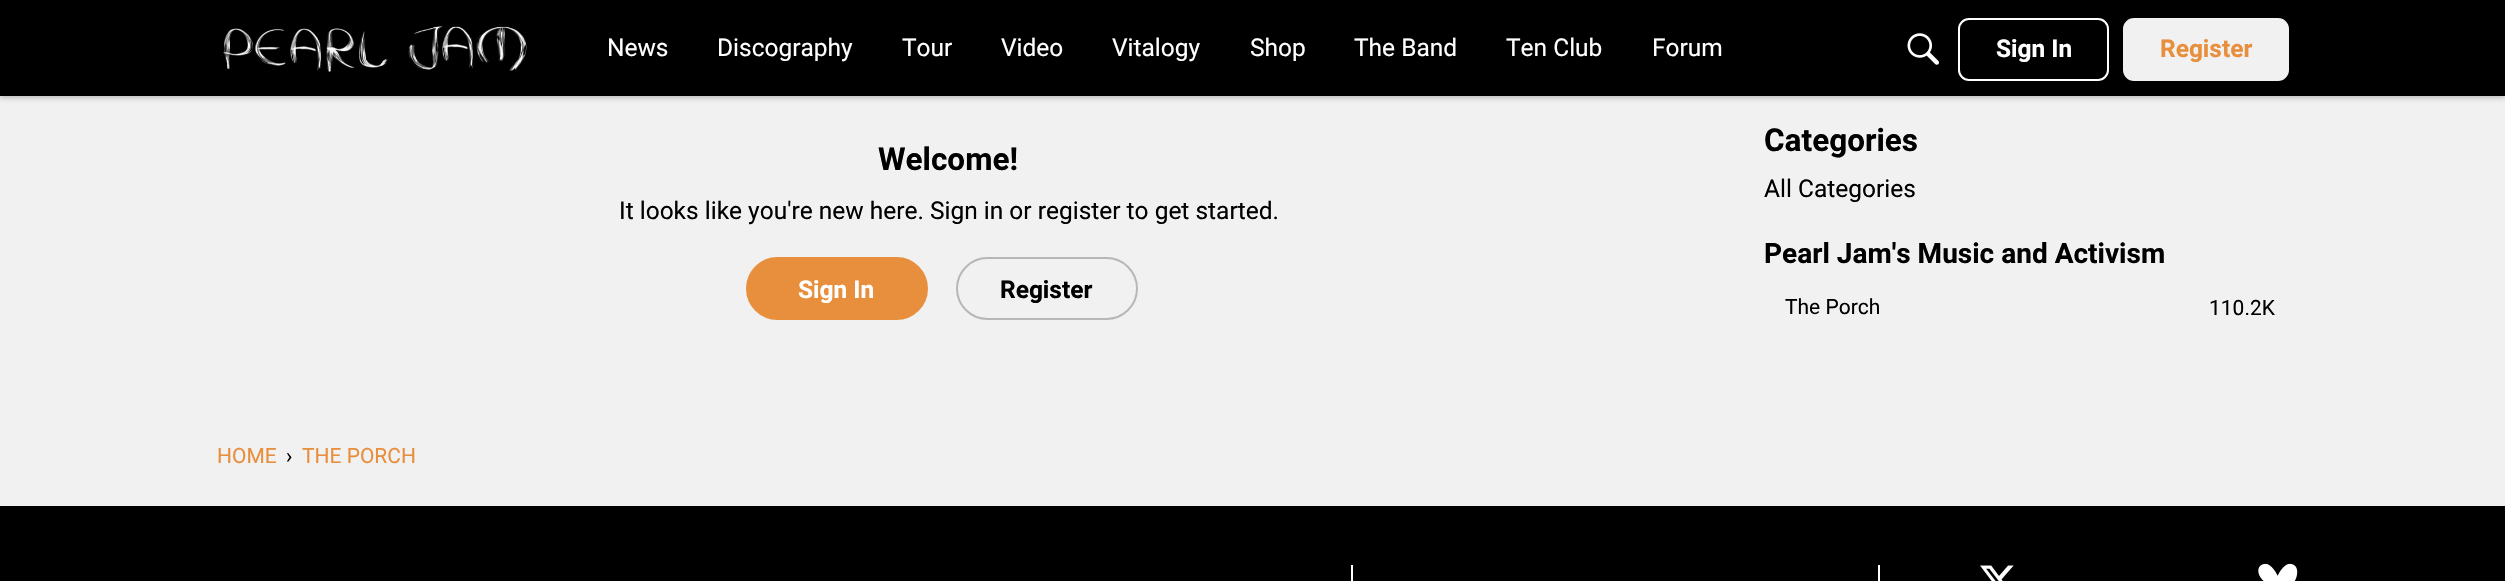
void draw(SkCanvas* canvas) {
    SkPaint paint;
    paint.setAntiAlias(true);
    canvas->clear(0xFFF1F1F1);
    paint.setColor(0x38000000);
    paint.setMaskFilter(SkMaskFilter::MakeBlur(kNormal_SkBlurStyle, 2.5f));
    canvas->drawRect(SkRect::MakeXYWH(0, 2, 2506, 96), paint);
    paint.setMaskFilter(nullptr);
    paint.setColor(0xFF000000);
    canvas->drawRect(SkRect::MakeXYWH(0, 0, 2505, 96), paint);
    canvas->drawImageRect(SkImages::DeferredFromEncodedData(SkData::MakeFromFileName("img1.png")), SkRect::MakeXYWH(223, 26, 304, 55), SkSamplingOptions());
    SkFont font1(fontMgr->matchFamilyStyle("Roboto", SkFontStyle::Normal()), 24.5f);
    font1.setSubpixel(true);
    paint.setColor(0xFFFFFFFF);
    canvas->drawString("News", 607, 56, font1, paint);
    canvas->drawString("Discography", 717, 56, font1, paint);
    canvas->drawString("Tour", 902, 56, font1, paint);
    canvas->drawString("Video", 1001, 56, font1, paint);
    canvas->drawString("Vitalogy", 1112, 56, font1, paint);
    canvas->drawString("Shop", 1250, 56, font1, paint);
    canvas->drawString("The Band", 1354, 56, font1, paint);
    canvas->drawString("Ten Club", 1506, 56, font1, paint);
    canvas->drawString("Forum", 1652, 56, font1, paint);
    canvas->drawImageRect(SkImages::DeferredFromEncodedData(SkData::MakeFromFileName("img2.png")), SkRect::MakeXYWH(1907, 33, 32, 32), SkSamplingOptions());
    paint.setStyle(SkPaint::kStroke_Style);
    paint.setStrokeWidth(2);
    canvas->drawRoundRect(SkRect::MakeXYWH(1959, 19, 149, 61), 10, 10, paint);
    SkFont font2(fontMgr->matchFamilyStyle("Roboto", SkFontStyle::Bold()), 24.5f);
    font2.setSubpixel(true);
    paint.setStyle(SkPaint::kFill_Style);
    canvas->drawString("Sign In", 1996, 57, font2, paint);
    paint.setColor(0xFFF1F1F1);
    canvas->drawRoundRect(SkRect::MakeXYWH(2124, 19, 164, 61), 10, 10, paint);
    paint.setStyle(SkPaint::kStroke_Style);
    canvas->drawRoundRect(SkRect::MakeXYWH(2124, 19, 164, 61), 10, 10, paint);
    paint.setStyle(SkPaint::kFill_Style);
    paint.setColor(0xFFE88F3D);
    canvas->drawString("Register", 2160, 57, font2, paint);
    SkFont font3(fontMgr->matchFamilyStyle("Roboto", SkFontStyle::Bold()), 31.5f);
    font3.setSubpixel(true);
    paint.setColor(0xFF000000);
    canvas->drawString("Welcome!", 878, 170, font3, paint);
    canvas->drawString("It looks like you're new here. Sign in or register to get started.", 619, 219, font1, paint);
    paint.setColor(0xFFE88F3D);
    canvas->drawRoundRect(SkRect::MakeXYWH(747, 258, 180, 61), 30.5f, 30.5f, paint);
    paint.setStyle(SkPaint::kStroke_Style);
    canvas->drawRoundRect(SkRect::MakeXYWH(747, 258, 180, 61), 30.5f, 30.5f, paint);
    paint.setStyle(SkPaint::kFill_Style);
    paint.setColor(0xFFFFFFFF);
    canvas->drawString("Sign In", 798, 298, font2, paint);
    paint.setStyle(SkPaint::kStroke_Style);
    paint.setColor(0xFFB7B7B7);
    canvas->drawRoundRect(SkRect::MakeXYWH(957, 258, 180, 61), 30.5f, 30.5f, paint);
    paint.setStyle(SkPaint::kFill_Style);
    paint.setColor(0xFF000000);
    canvas->drawString("Register", 1000, 298, font2, paint);
    canvas->drawString("Categories", 1764, 151, font3, paint);
    canvas->drawString("All Categories", 1764, 197, font1, paint);
    SkFont font4(fontMgr->matchFamilyStyle("Roboto", SkFontStyle::Bold()), 28);
    font4.setSubpixel(true);
    canvas->drawString("Pearl Jam's Music and Activism", 1764, 263, font4, paint);
    SkFont font5(fontMgr->matchFamilyStyle("Roboto", SkFontStyle::Normal()), 21);
    font5.setSubpixel(true);
    canvas->drawString("The Porch", 1785, 314, font5, paint);
    canvas->drawString("110.2K", 2209, 315, font5, paint);
    paint.setColor(0xFFE88F3D);
    canvas->drawString("HOME", 217, 463, font5, paint);
    paint.setColor(0xFF000000);
    canvas->drawString("›", 286, 463, font5, paint);
    paint.setColor(0xFFE88F3D);
    canvas->drawString("THE PORCH", 302, 463, font5, paint);
    paint.setColor(0xFF000000);
    canvas->drawRect(SkRect::MakeXYWH(0, 506, 2505, 75), paint);
    paint.setColor(0xFFFFFFFF);
    canvas->drawRect(SkRect::MakeXYWH(1351, 565, 2, 16), paint);
    canvas->drawRect(SkRect::MakeXYWH(1878, 565, 2, 16), paint);
    canvas->drawImageRect(SkImages::DeferredFromEncodedData(SkData::MakeFromFileName("img3.png")), SkRect::MakeXYWH(1980, 565, 34, 16), SkSamplingOptions());
    canvas->drawImageRect(SkImages::DeferredFromEncodedData(SkData::MakeFromFileName("img4.png")), SkRect::MakeXYWH(2258, 563, 40, 18), SkSamplingOptions());
}
